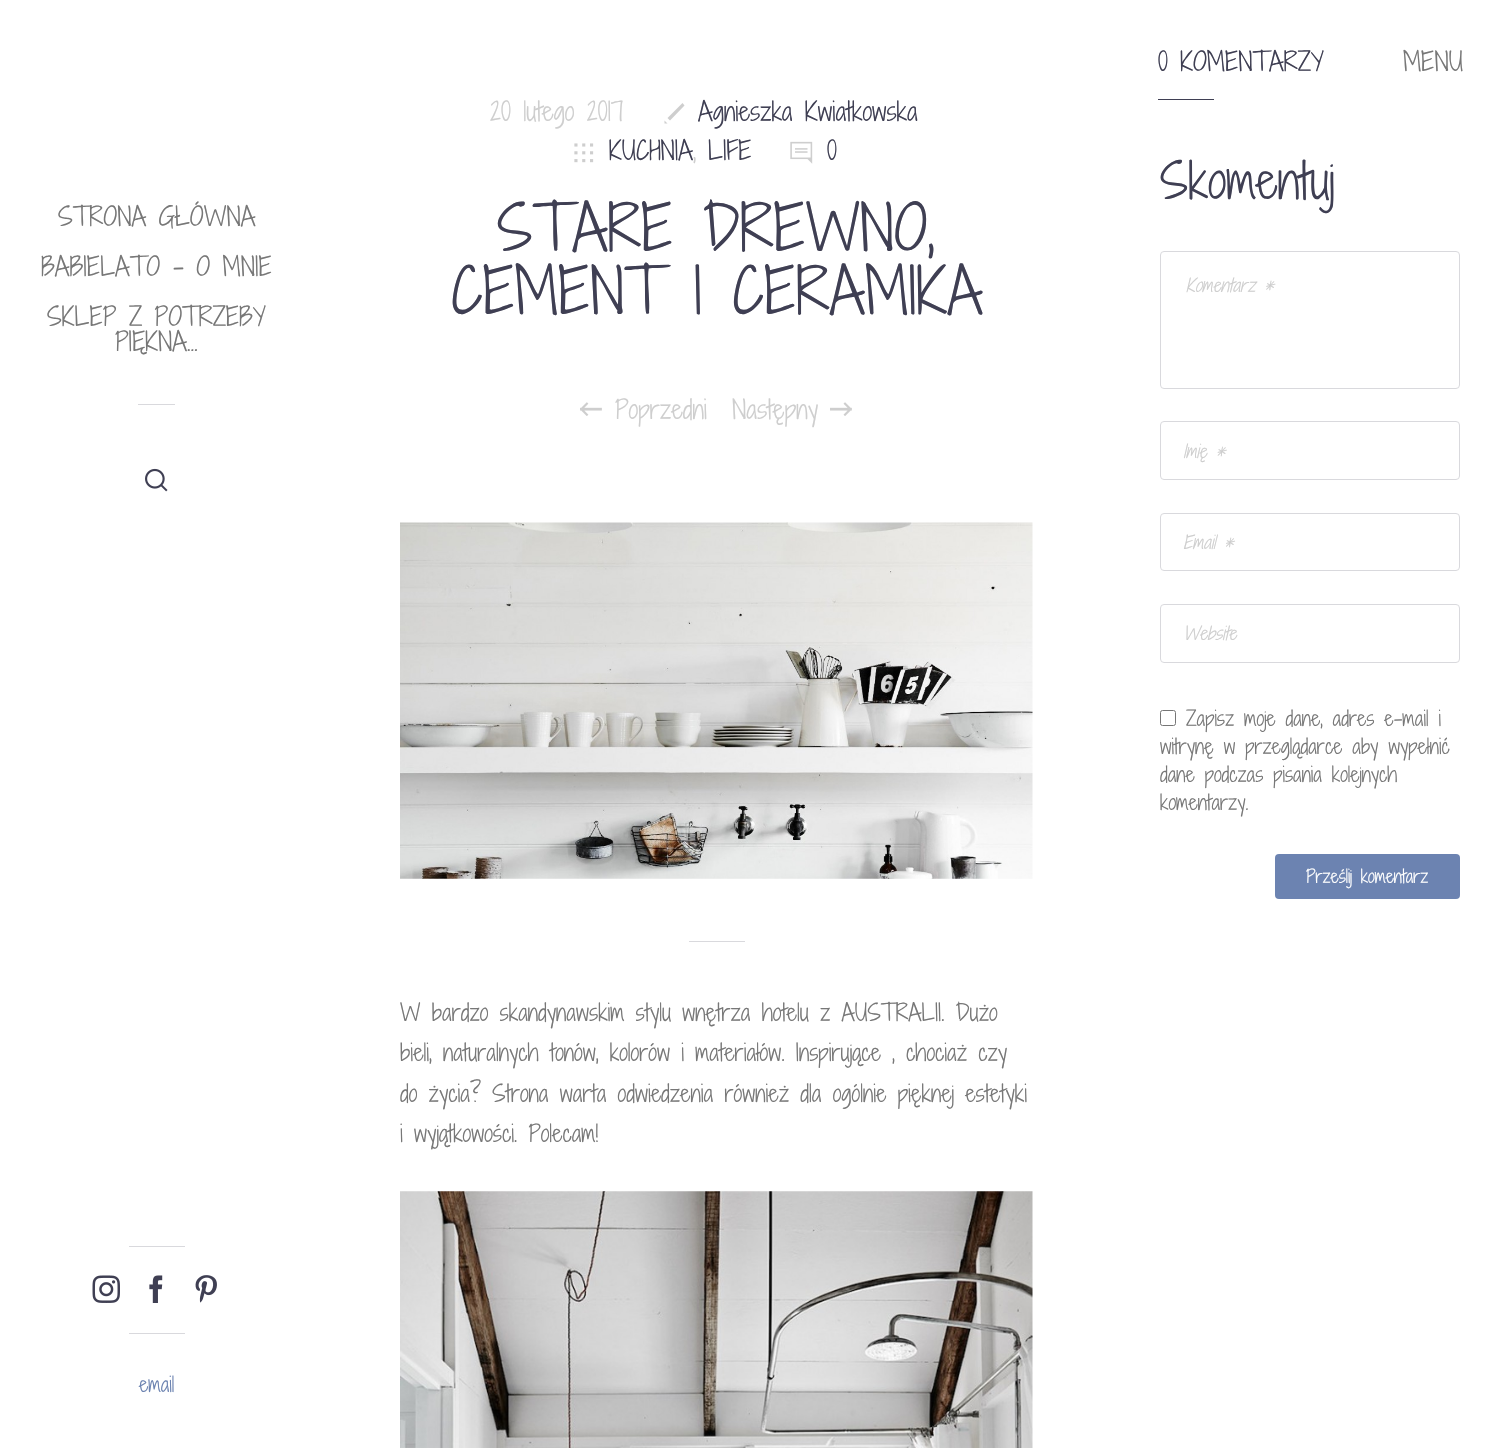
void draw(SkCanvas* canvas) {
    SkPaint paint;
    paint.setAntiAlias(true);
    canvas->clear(0xFFFFFFFF);
    SkFont font1(fontMgr->matchFamilyStyle("Shadows Into Light Two", SkFontStyle(300, SkFontStyle::kNormal_Width, SkFontStyle::kUpright_Slant)), 25);
    font1.setSubpixel(true);
    paint.setColor(0xFF777777);
    canvas->drawString("STRONA GŁÓWNA", 58, 226, font1, paint);
    canvas->drawString("BABIELATO – O MNIE", 41, 276, font1, paint);
    canvas->drawString("SKLEP Z POTRZEBY", 47, 326, font1, paint);
    canvas->drawString("PIĘKNA…", 115, 351, font1, paint);
    paint.setColor(0xFFD9D9DD);
    canvas->drawRect(SkRect::MakeXYWH(138, 404, 37, 1), paint);
    canvas->drawImageRect(SkImages::DeferredFromEncodedData(SkData::MakeFromFileName("img1.png")), SkRect::MakeXYWH(145, 468, 23, 24), SkSamplingOptions());
    canvas->drawRect(SkRect::MakeXYWH(129, 1246, 56, 1), paint);
    canvas->drawImageRect(SkImages::DeferredFromEncodedData(SkData::MakeFromFileName("img2.png")), SkRect::MakeXYWH(92, 1275, 28, 28), SkSamplingOptions());
    canvas->drawImageRect(SkImages::DeferredFromEncodedData(SkData::MakeFromFileName("img3.png")), SkRect::MakeXYWH(149, 1275, 14, 28), SkSamplingOptions());
    canvas->drawImageRect(SkImages::DeferredFromEncodedData(SkData::MakeFromFileName("img4.png")), SkRect::MakeXYWH(195, 1275, 22, 28), SkSamplingOptions());
    canvas->drawRect(SkRect::MakeXYWH(129, 1333, 56, 1), paint);
    SkFont font2(fontMgr->matchFamilyStyle("Shadows Into Light Two", SkFontStyle(300, SkFontStyle::kNormal_Width, SkFontStyle::kUpright_Slant)), 20);
    font2.setSubpixel(true);
    paint.setColor(0xFF6C83B1);
    canvas->drawString("email", 139, 1392, font2, paint);
    paint.setColor(0xFFCECECE);
    canvas->drawString("20 lutego 2017", 490, 121, font1, paint);
    canvas->drawPath(SkPathBuilder().moveTo(682.5f, 103).lineTo(667.5f, 118).lineTo(670, 120.5f).lineTo(684.5f, 105.5f).close().moveTo(664.5f, 120.5f).lineTo(664.5f, 123.5f).lineTo(667.5f, 123.5f).close().detach(), paint);
    paint.setColor(0xFF3F3F53);
    canvas->drawString("Agnieszka Kwiatkowska", 698, 121, font1, paint);
    canvas->drawImageRect(SkImages::DeferredFromEncodedData(SkData::MakeFromFileName("img5.png")), SkRect::MakeXYWH(574, 143, 20, 20), SkSamplingOptions());
    canvas->drawString("KUCHNIA", 609, 160, font1, paint);
    paint.setColor(0xFFCECECE);
    canvas->drawString(",", 693, 160, font1, paint);
    paint.setColor(0xFF3F3F53);
    canvas->drawString("LIFE", 708, 160, font1, paint);
    canvas->drawImageRect(SkImages::DeferredFromEncodedData(SkData::MakeFromFileName("img6.png")), SkRect::MakeXYWH(790, 141, 23, 23), SkSamplingOptions());
    canvas->drawString("0", 827, 160, font1, paint);
    SkFont font3(fontMgr->matchFamilyStyle("Shadows Into Light Two", SkFontStyle(300, SkFontStyle::kNormal_Width, SkFontStyle::kUpright_Slant)), 60);
    font3.setSubpixel(true);
    canvas->drawString("STARE DREWNO,", 497, 251, font3, paint);
    canvas->drawString("CEMENT I CERAMIKA", 451, 314, font3, paint);
    canvas->drawImageRect(SkImages::DeferredFromEncodedData(SkData::MakeFromFileName("img7.png")), SkRect::MakeXYWH(580, 402, 22, 14), SkSamplingOptions());
    paint.setColor(0xFFCECECE);
    canvas->drawString("Poprzedni", 615, 419, font1, paint);
    canvas->drawString("Następny", 732, 419, font1, paint);
    canvas->drawImageRect(SkImages::DeferredFromEncodedData(SkData::MakeFromFileName("img8.png")), SkRect::MakeXYWH(830, 402, 22, 14), SkSamplingOptions());
    canvas->drawImageRect(SkImages::DeferredFromEncodedData(SkData::MakeFromFileName("img9.png")), SkRect::MakeXYWH(400, 522, 633, 357), SkSamplingOptions());
    paint.setColor(0xFFD9D9DD);
    canvas->drawRect(SkRect::MakeXYWH(689, 941, 56, 1), paint);
    SkFont font4(fontMgr->matchFamilyStyle("Shadows Into Light Two", SkFontStyle(300, SkFontStyle::kNormal_Width, SkFontStyle::kUpright_Slant)), 22.5f);
    font4.setSubpixel(true);
    paint.setColor(0xFF777777);
    canvas->drawString("W bardzo skandynawskim stylu wnętrza hotelu z AUSTRALII. Dużo", 400, 1021, font4, paint);
    canvas->drawString("bieli, naturalnych tonów, kolorów i materiałów. Inspirujące , chociaż czy", 400, 1061, font4, paint);
    canvas->drawString("do życia? Strona warta odwiedzenia również dla ogólnie pięknej estetyki", 400, 1102, font4, paint);
    canvas->drawString("i wyjątkowości. Polecam!", 400, 1142, font4, paint);
    canvas->drawImageRect(SkImages::DeferredFromEncodedData(SkData::MakeFromFileName("img10.png")), SkRect::MakeXYWH(400, 1191, 633, 257), SkSamplingOptions());
    paint.setColor(0xFF3F3F53);
    canvas->drawString("0 KOMENTARZY", 1158, 71, font1, paint);
    paint.setColor(0xFF777777);
    canvas->drawString("MENU", 1403, 71, font1, paint);
    paint.setColor(0xFF3F3F53);
    canvas->drawRect(SkRect::MakeXYWH(1158, 99, 56, 1), paint);
    SkFont font5(fontMgr->matchFamilyStyle("Shadows Into Light Two", SkFontStyle(300, SkFontStyle::kNormal_Width, SkFontStyle::kUpright_Slant)), 47.5f);
    font5.setSubpixel(true);
    canvas->drawString("Skomentuj", 1160, 199, font5, paint);
    paint.setStyle(SkPaint::kStroke_Style);
    paint.setStrokeWidth(1);
    paint.setColor(0xFFD9D9DD);
    canvas->drawRoundRect(SkRect::MakeXYWH(1160.5f, 251.5f, 299, 137), 3.5f, 3.5f, paint);
    SkFont font6(fontMgr->matchFamilyStyle("Shadows Into Light Two", SkFontStyle(300, SkFontStyle::kNormal_Width, SkFontStyle::kItalic_Slant)), 17.5f);
    font6.setSubpixel(true);
    paint.setStyle(SkPaint::kFill_Style);
    paint.setColor(0xFFCECECE);
    canvas->drawString("Komentarz *", 1186, 292, font6, paint);
    paint.setStyle(SkPaint::kStroke_Style);
    paint.setColor(0xFFD9D9DD);
    canvas->drawRoundRect(SkRect::MakeXYWH(1160.5f, 421.5f, 299, 58), 3.5f, 3.5f, paint);
    paint.setStyle(SkPaint::kFill_Style);
    paint.setColor(0xFFCECECE);
    canvas->drawString("Imię *", 1183, 458, font6, paint);
    paint.setStyle(SkPaint::kStroke_Style);
    paint.setColor(0xFFD9D9DD);
    canvas->drawRoundRect(SkRect::MakeXYWH(1160.5f, 513.5f, 299, 57), 3.5f, 3.5f, paint);
    paint.setStyle(SkPaint::kFill_Style);
    paint.setColor(0xFFCECECE);
    canvas->drawString("Email *", 1183, 549, font6, paint);
    paint.setStyle(SkPaint::kStroke_Style);
    paint.setColor(0xFFD9D9DD);
    canvas->drawRoundRect(SkRect::MakeXYWH(1160.5f, 604.5f, 299, 58), 3.5f, 3.5f, paint);
    paint.setStyle(SkPaint::kFill_Style);
    paint.setColor(0xFFCECECE);
    canvas->drawString("Website", 1183, 640, font6, paint);
    paint.setStyle(SkPaint::kStroke_Style);
    paint.setColor(0xFF767676);
    canvas->drawRoundRect(SkRect::MakeXYWH(1160.5f, 710.5f, 15, 15), 2, 2, paint);
    paint.setStyle(SkPaint::kFill_Style);
    paint.setColor(0xFF777777);
    canvas->drawString("Zapisz moje dane, adres e-mail i", 1186, 726, font2, paint);
    canvas->drawString("witrynę w przeglądarce aby wypełnić", 1160, 754, font2, paint);
    canvas->drawString("dane podczas pisania kolejnych", 1160, 782, font2, paint);
    canvas->drawString("komentarzy.", 1160, 810, font2, paint);
    paint.setColor(0xFF6C83B1);
    canvas->drawRoundRect(SkRect::MakeXYWH(1275, 854, 185, 45), 4, 4, paint);
    SkFont font7(fontMgr->matchFamilyStyle("Shadows Into Light Two", SkFontStyle(300, SkFontStyle::kNormal_Width, SkFontStyle::kUpright_Slant)), 17.5f);
    font7.setSubpixel(true);
    paint.setColor(0xFFFFFFFF);
    canvas->drawString("Prześlij komentarz", 1306, 883, font7, paint);
}
